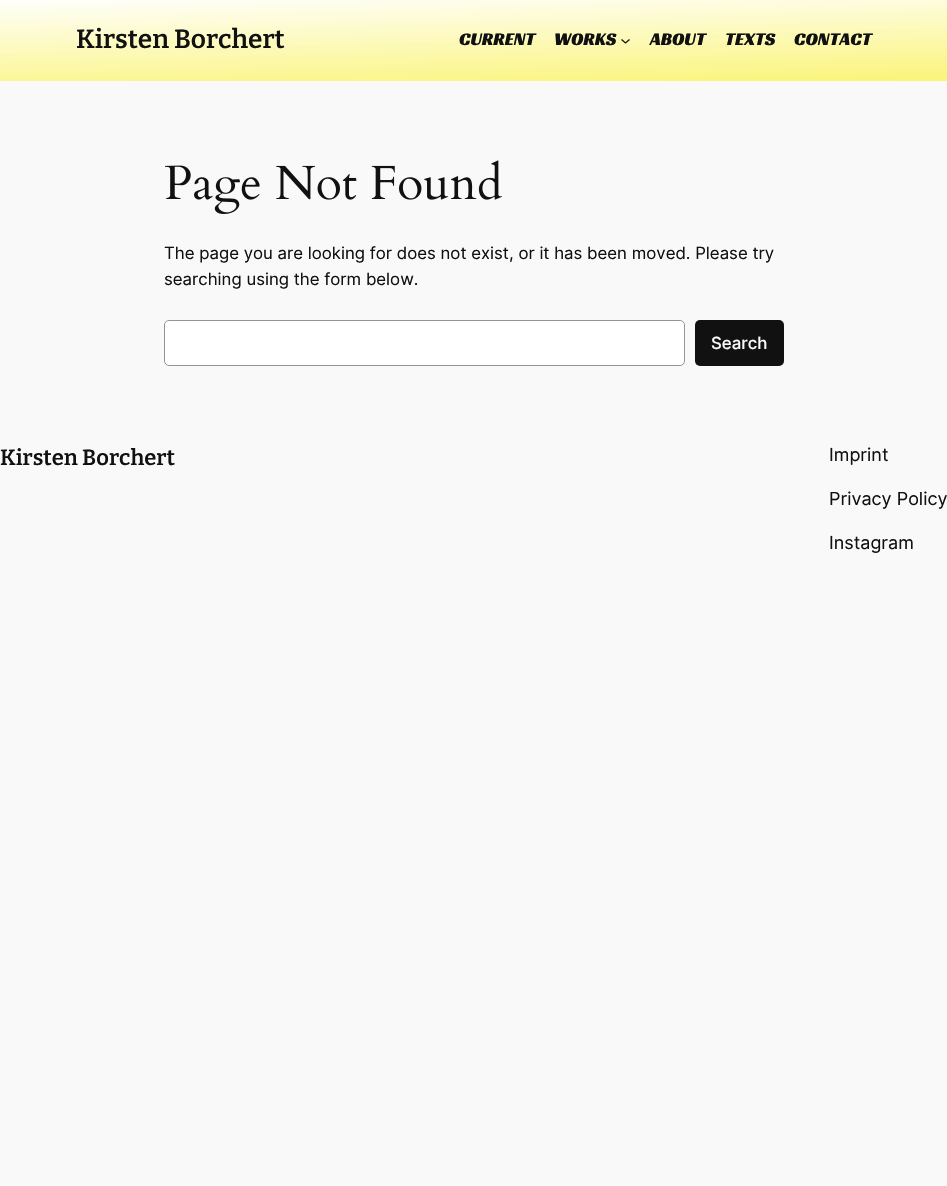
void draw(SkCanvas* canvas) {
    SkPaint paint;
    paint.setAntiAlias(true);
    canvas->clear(0xFFF9F9F9);
    {
        const SkColor colors[] = {0xFFFFFFFF, 0xFFFAF475};
        const float stops[] = {0, 1};
        const SkPoint ends[] = {{472, -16}, {475, 97}};
        paint.setShader(SkGradientShader::MakeLinear(ends, colors, stops, 2, SkTileMode::kClamp));
        paint.setAlpha(255);
    }
    canvas->drawRect(SkRect::MakeXYWH(0, 0, 947, 81), paint);
    SkFont font1(fontMgr->matchFamilyStyle("Bitter", SkFontStyle(600, SkFontStyle::kNormal_Width, SkFontStyle::kUpright_Slant)), 26.25f);
    font1.setSubpixel(true);
    paint.setShader(nullptr);
    paint.setColor(0xFF111111);
    canvas->drawString("Kirsten Borchert", 76, 48, font1, paint);
    SkFont font2(fontMgr->matchFamilyStyle("Racing Sans One", SkFontStyle::Normal()), 18);
    font2.setSubpixel(true);
    canvas->drawString("CURRENT", 459, 45, font2, paint);
    canvas->drawString("WORKS", 554, 45, font2, paint);
    paint.setStyle(SkPaint::kStroke_Style);
    paint.setStrokeWidth(1.3f);
    canvas->drawPath(SkPathBuilder().moveTo(621.5f, 39.5f).lineTo(625.5f, 43).lineTo(629.5f, 39.5f).detach(), paint);
    paint.setStyle(SkPaint::kFill_Style);
    canvas->drawString("ABOUT", 650, 45, font2, paint);
    canvas->drawString("TEXTS", 725, 45, font2, paint);
    canvas->drawString("CONTACT", 794, 45, font2, paint);
    canvas->drawImageRect(SkImages::DeferredFromEncodedData(SkData::MakeFromFileName("img1.png")), SkRect::MakeXYWH(165, 160, 337, 54), SkSamplingOptions());
    SkFont font3(fontMgr->matchFamilyStyle("Inter", SkFontStyle::Normal()), 16.8f);
    font3.setSubpixel(true);
    canvas->drawString("The page you are looking for does not exist, or it has been moved. Please try", 164, 259, font3, paint);
    canvas->drawString("searching using the form below.", 164, 285, font3, paint);
    paint.setColor(0xFFFFFFFF);
    canvas->drawRoundRect(SkRect::MakeXYWH(164.5f, 320.5f, 520, 45), 4.5f, 4.5f, paint);
    paint.setStyle(SkPaint::kStroke_Style);
    paint.setStrokeWidth(1);
    paint.setColor(0xFF949494);
    canvas->drawRoundRect(SkRect::MakeXYWH(164.5f, 320.5f, 520, 45), 4.5f, 4.5f, paint);
    paint.setStyle(SkPaint::kFill_Style);
    paint.setColor(0xFF111111);
    canvas->drawRoundRect(SkRect::MakeXYWH(695, 320, 89, 46), 5, 5, paint);
    SkFont font4(fontMgr->matchFamilyStyle("Inter", SkFontStyle(500, SkFontStyle::kNormal_Width, SkFontStyle::kUpright_Slant)), 16.8f);
    font4.setSubpixel(true);
    paint.setColor(0xFFF9F9F9);
    canvas->drawString("Search", 711, 349, font4, paint);
    SkFont font5(fontMgr->matchFamilyStyle("Bitter", SkFontStyle(600, SkFontStyle::kNormal_Width, SkFontStyle::kUpright_Slant)), 22);
    font5.setSubpixel(true);
    paint.setColor(0xFF111111);
    canvas->drawString("Kirsten Borchert", 0, 465, font5, paint);
    SkFont font6(fontMgr->matchFamilyStyle("Inter", SkFontStyle::Normal()), 18);
    font6.setSubpixel(true);
    canvas->drawString("Imprint", 829, 461, font6, paint);
    canvas->drawString("Privacy Policy", 829, 505, font6, paint);
    canvas->drawString("Instagram", 829, 549, font6, paint);
}
